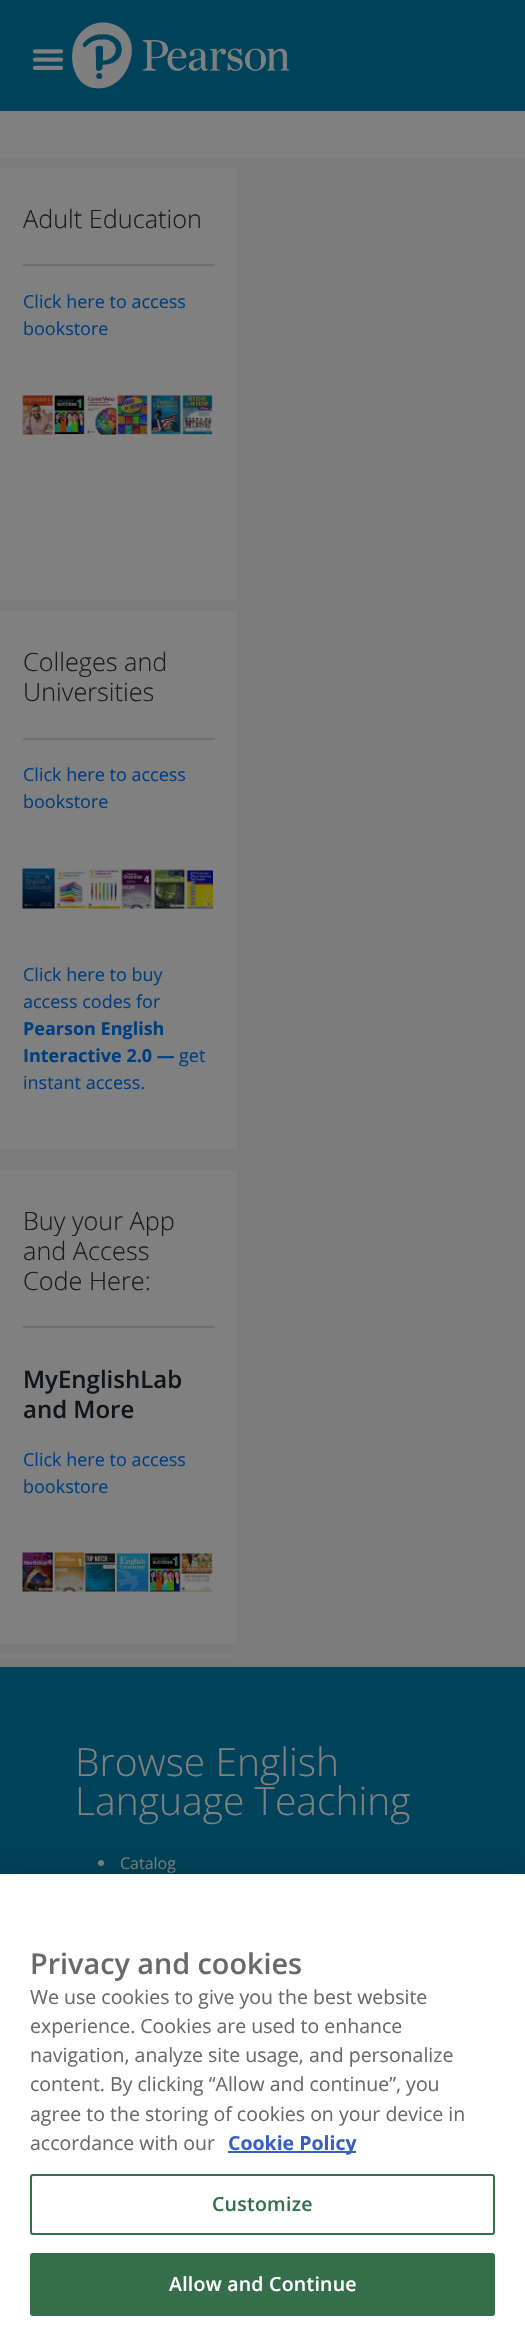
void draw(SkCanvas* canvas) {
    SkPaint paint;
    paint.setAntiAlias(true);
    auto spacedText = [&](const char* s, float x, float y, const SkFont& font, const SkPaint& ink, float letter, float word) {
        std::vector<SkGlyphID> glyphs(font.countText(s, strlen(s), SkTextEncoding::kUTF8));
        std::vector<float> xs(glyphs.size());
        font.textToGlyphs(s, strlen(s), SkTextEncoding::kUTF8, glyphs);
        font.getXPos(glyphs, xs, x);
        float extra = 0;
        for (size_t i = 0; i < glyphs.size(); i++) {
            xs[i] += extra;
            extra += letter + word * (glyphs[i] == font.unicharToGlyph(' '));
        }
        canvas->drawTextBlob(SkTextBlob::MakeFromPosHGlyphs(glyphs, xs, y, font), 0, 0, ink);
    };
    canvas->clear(0xFF808080);
    paint.setColor(0xFF00435A);
    canvas->drawRect(SkRect::MakeXYWH(0, 0, 525, 111), paint);
    canvas->drawImageRect(SkImages::DeferredFromEncodedData(SkData::MakeFromFileName("img1.png")), SkRect::MakeXYWH(32, 49, 32, 21), SkSamplingOptions());
    canvas->drawImageRect(SkImages::DeferredFromEncodedData(SkData::MakeFromFileName("img2.png")), SkRect::MakeXYWH(72, 22, 218, 67), SkSamplingOptions());
    paint.setColor(0xFF7B7B7B);
    canvas->drawRect(SkRect::MakeXYWH(0, 158, 525, 1509), paint);
    paint.setColor(0xFF808080);
    canvas->drawRect(SkRect::MakeXYWH(0, 168, 237, 432), paint);
    paint.setColor(0xFF6E6E6E);
    canvas->drawRect(SkRect::MakeXYWH(23, 264, 192, 2), paint);
    SkFont font1(fontMgr->matchFamilyStyle("Open Sans", SkFontStyle(300, SkFontStyle::kNormal_Width, SkFontStyle::kUpright_Slant)), 25.25f);
    font1.setSubpixel(true);
    paint.setColor(0xFF1A1A1A);
    canvas->drawString("Adult Education", 23, 228, font1, paint);
    SkFont font2(fontMgr->matchFamilyStyle("Open Sans", SkFontStyle::Normal()), 18);
    font2.setSubpixel(true);
    paint.setColor(0xFF003E80);
    canvas->drawString("Click here to access", 23, 308, font2, paint);
    canvas->drawString("bookstore", 23, 335, font2, paint);
    canvas->drawImageRect(SkImages::DeferredFromEncodedData(SkData::MakeFromFileName("img3.png")), SkRect::MakeXYWH(22, 394, 191, 41), SkSamplingOptions());
    paint.setColor(0xFF808080);
    canvas->drawRect(SkRect::MakeXYWH(0, 611, 237, 538), paint);
    paint.setColor(0xFF6E6E6E);
    canvas->drawRect(SkRect::MakeXYWH(23, 738, 192, 2), paint);
    paint.setColor(0xFF1A1A1A);
    canvas->drawString("Colleges and", 23, 671, font1, paint);
    canvas->drawString("Universities", 23, 701, font1, paint);
    paint.setColor(0xFF003E80);
    canvas->drawString("Click here to access", 23, 781, font2, paint);
    canvas->drawString("bookstore", 23, 808, font2, paint);
    canvas->drawImageRect(SkImages::DeferredFromEncodedData(SkData::MakeFromFileName("img4.png")), SkRect::MakeXYWH(22, 868, 191, 41), SkSamplingOptions());
    canvas->drawString("Click here to buy", 23, 981, font2, paint);
    canvas->drawString("access codes for", 23, 1008, font2, paint);
    SkFont font3(fontMgr->matchFamilyStyle("Open Sans", SkFontStyle::Bold()), 18);
    font3.setSubpixel(true);
    canvas->drawString("Pearson English", 23, 1035, font3, paint);
    canvas->drawString("Interactive 2.0 —", 23, 1062, font3, paint);
    canvas->drawString("get", 179, 1062, font2, paint);
    canvas->drawString("instant access.", 23, 1089, font2, paint);
    paint.setColor(0xFF808080);
    canvas->drawRect(SkRect::MakeXYWH(0, 1170, 237, 474), paint);
    paint.setColor(0xFF6E6E6E);
    canvas->drawRect(SkRect::MakeXYWH(23, 1326, 192, 2), paint);
    paint.setColor(0xFF1A1A1A);
    canvas->drawString("Buy your App", 23, 1230, font1, paint);
    canvas->drawString("and Access", 23, 1260, font1, paint);
    canvas->drawString("Code Here:", 23, 1290, font1, paint);
    SkFont font4(fontMgr->matchFamilyStyle("Open Sans", SkFontStyle(600, SkFontStyle::kNormal_Width, SkFontStyle::kUpright_Slant)), 24);
    font4.setSubpixel(true);
    paint.setColor(0xFF121517);
    canvas->drawString("MyEnglishLab", 23, 1388, font4, paint);
    canvas->drawString("and More", 23, 1418, font4, paint);
    paint.setColor(0xFF003E80);
    canvas->drawString("Click here to access", 23, 1466, font2, paint);
    canvas->drawString("bookstore", 23, 1493, font2, paint);
    canvas->drawImageRect(SkImages::DeferredFromEncodedData(SkData::MakeFromFileName("img5.png")), SkRect::MakeXYWH(22, 1552, 191, 40), SkSamplingOptions());
    paint.setColor(0xFF808080);
    canvas->drawRect(SkRect::MakeXYWH(0, 1655, 237, 2), paint);
    paint.setColor(0xFF00435A);
    canvas->drawRect(SkRect::MakeXYWH(0, 1667, 525, 207), paint);
    SkFont font5(fontMgr->matchFamilyStyle("Open Sans", SkFontStyle(300, SkFontStyle::kNormal_Width, SkFontStyle::kUpright_Slant)), 39);
    font5.setSubpixel(true);
    paint.setColor(0xFF808080);
    canvas->drawString("Browse English", 75, 1776, font5, paint);
    canvas->drawString("Language Teaching", 75, 1815, font5, paint);
    canvas->drawCircle(101, 1863, 3, paint);
    SkFont font6(fontMgr->matchFamilyStyle("Open Sans", SkFontStyle::Normal()), 16);
    font6.setSubpixel(true);
    canvas->drawString("Catalog", 120, 1869, font6, paint);
    paint.setColor(0x33000000);
    paint.setMaskFilter(SkMaskFilter::MakeBlur(kNormal_SkBlurStyle, 13.5f));
    canvas->drawRect(SkRect::MakeXYWH(0, 1874, 525, 460), paint);
    paint.setMaskFilter(nullptr);
    paint.setColor(0xFFFFFFFF);
    canvas->drawRect(SkRect::MakeXYWH(0, 1874, 525, 460), paint);
    SkFont font7(fontMgr->matchFamilyStyle("Open Sans", SkFontStyle(600, SkFontStyle::kNormal_Width, SkFontStyle::kUpright_Slant)), 28.75f);
    font7.setSubpixel(true);
    paint.setColor(0xFF696969);
    canvas->drawString("Privacy and cookies", 30, 1974, font7, paint);
    SkFont font8(fontMgr->matchFamilyStyle("Open Sans", SkFontStyle::Normal()), 19.5f);
    font8.setSubpixel(true);
    canvas->drawString("We use cookies to give you the best website", 30, 2004, font8, paint);
    canvas->drawString("experience. Cookies are used to enhance", 30, 2033, font8, paint);
    canvas->drawString("navigation, analyze site usage, and personalize", 30, 2062, font8, paint);
    canvas->drawString("content. By clicking “Allow and continue”, you", 30, 2091, font8, paint);
    canvas->drawString("agree to the storing of cookies on your device in", 30, 2121, font8, paint);
    canvas->drawString("accordance with our", 30, 2150, font8, paint);
    paint.setColor(0xFF3860BE);
    canvas->drawRect(SkRect::MakeXYWH(228, 2151, 128, 2), paint);
    SkFont font9(fontMgr->matchFamilyStyle("Open Sans", SkFontStyle::Bold()), 19.5f);
    font9.setSubpixel(true);
    canvas->drawString("Cookie Policy", 228, 2150, font9, paint);
    paint.setStyle(SkPaint::kStroke_Style);
    paint.setStrokeWidth(2);
    paint.setColor(0xFF346E4A);
    canvas->drawRoundRect(SkRect::MakeXYWH(31, 2175, 463, 59), 2, 2, paint);
    SkFont font10(fontMgr->matchFamilyStyle("Open Sans", SkFontStyle(600, SkFontStyle::kNormal_Width, SkFontStyle::kUpright_Slant)), 19.5f);
    font10.setSubpixel(true);
    paint.setStyle(SkPaint::kFill_Style);
    spacedText("Customize", 212, 2211, font10, paint, 0.25f, 0);
    canvas->drawRoundRect(SkRect::MakeXYWH(31, 2254, 463, 61), 2, 2, paint);
    paint.setStyle(SkPaint::kStroke_Style);
    canvas->drawRoundRect(SkRect::MakeXYWH(31, 2254, 463, 61), 2, 2, paint);
    paint.setStyle(SkPaint::kFill_Style);
    paint.setColor(0xFFFFFFFF);
    spacedText("Allow and Continue", 169, 2291, font10, paint, 0.25f, 0);
}
